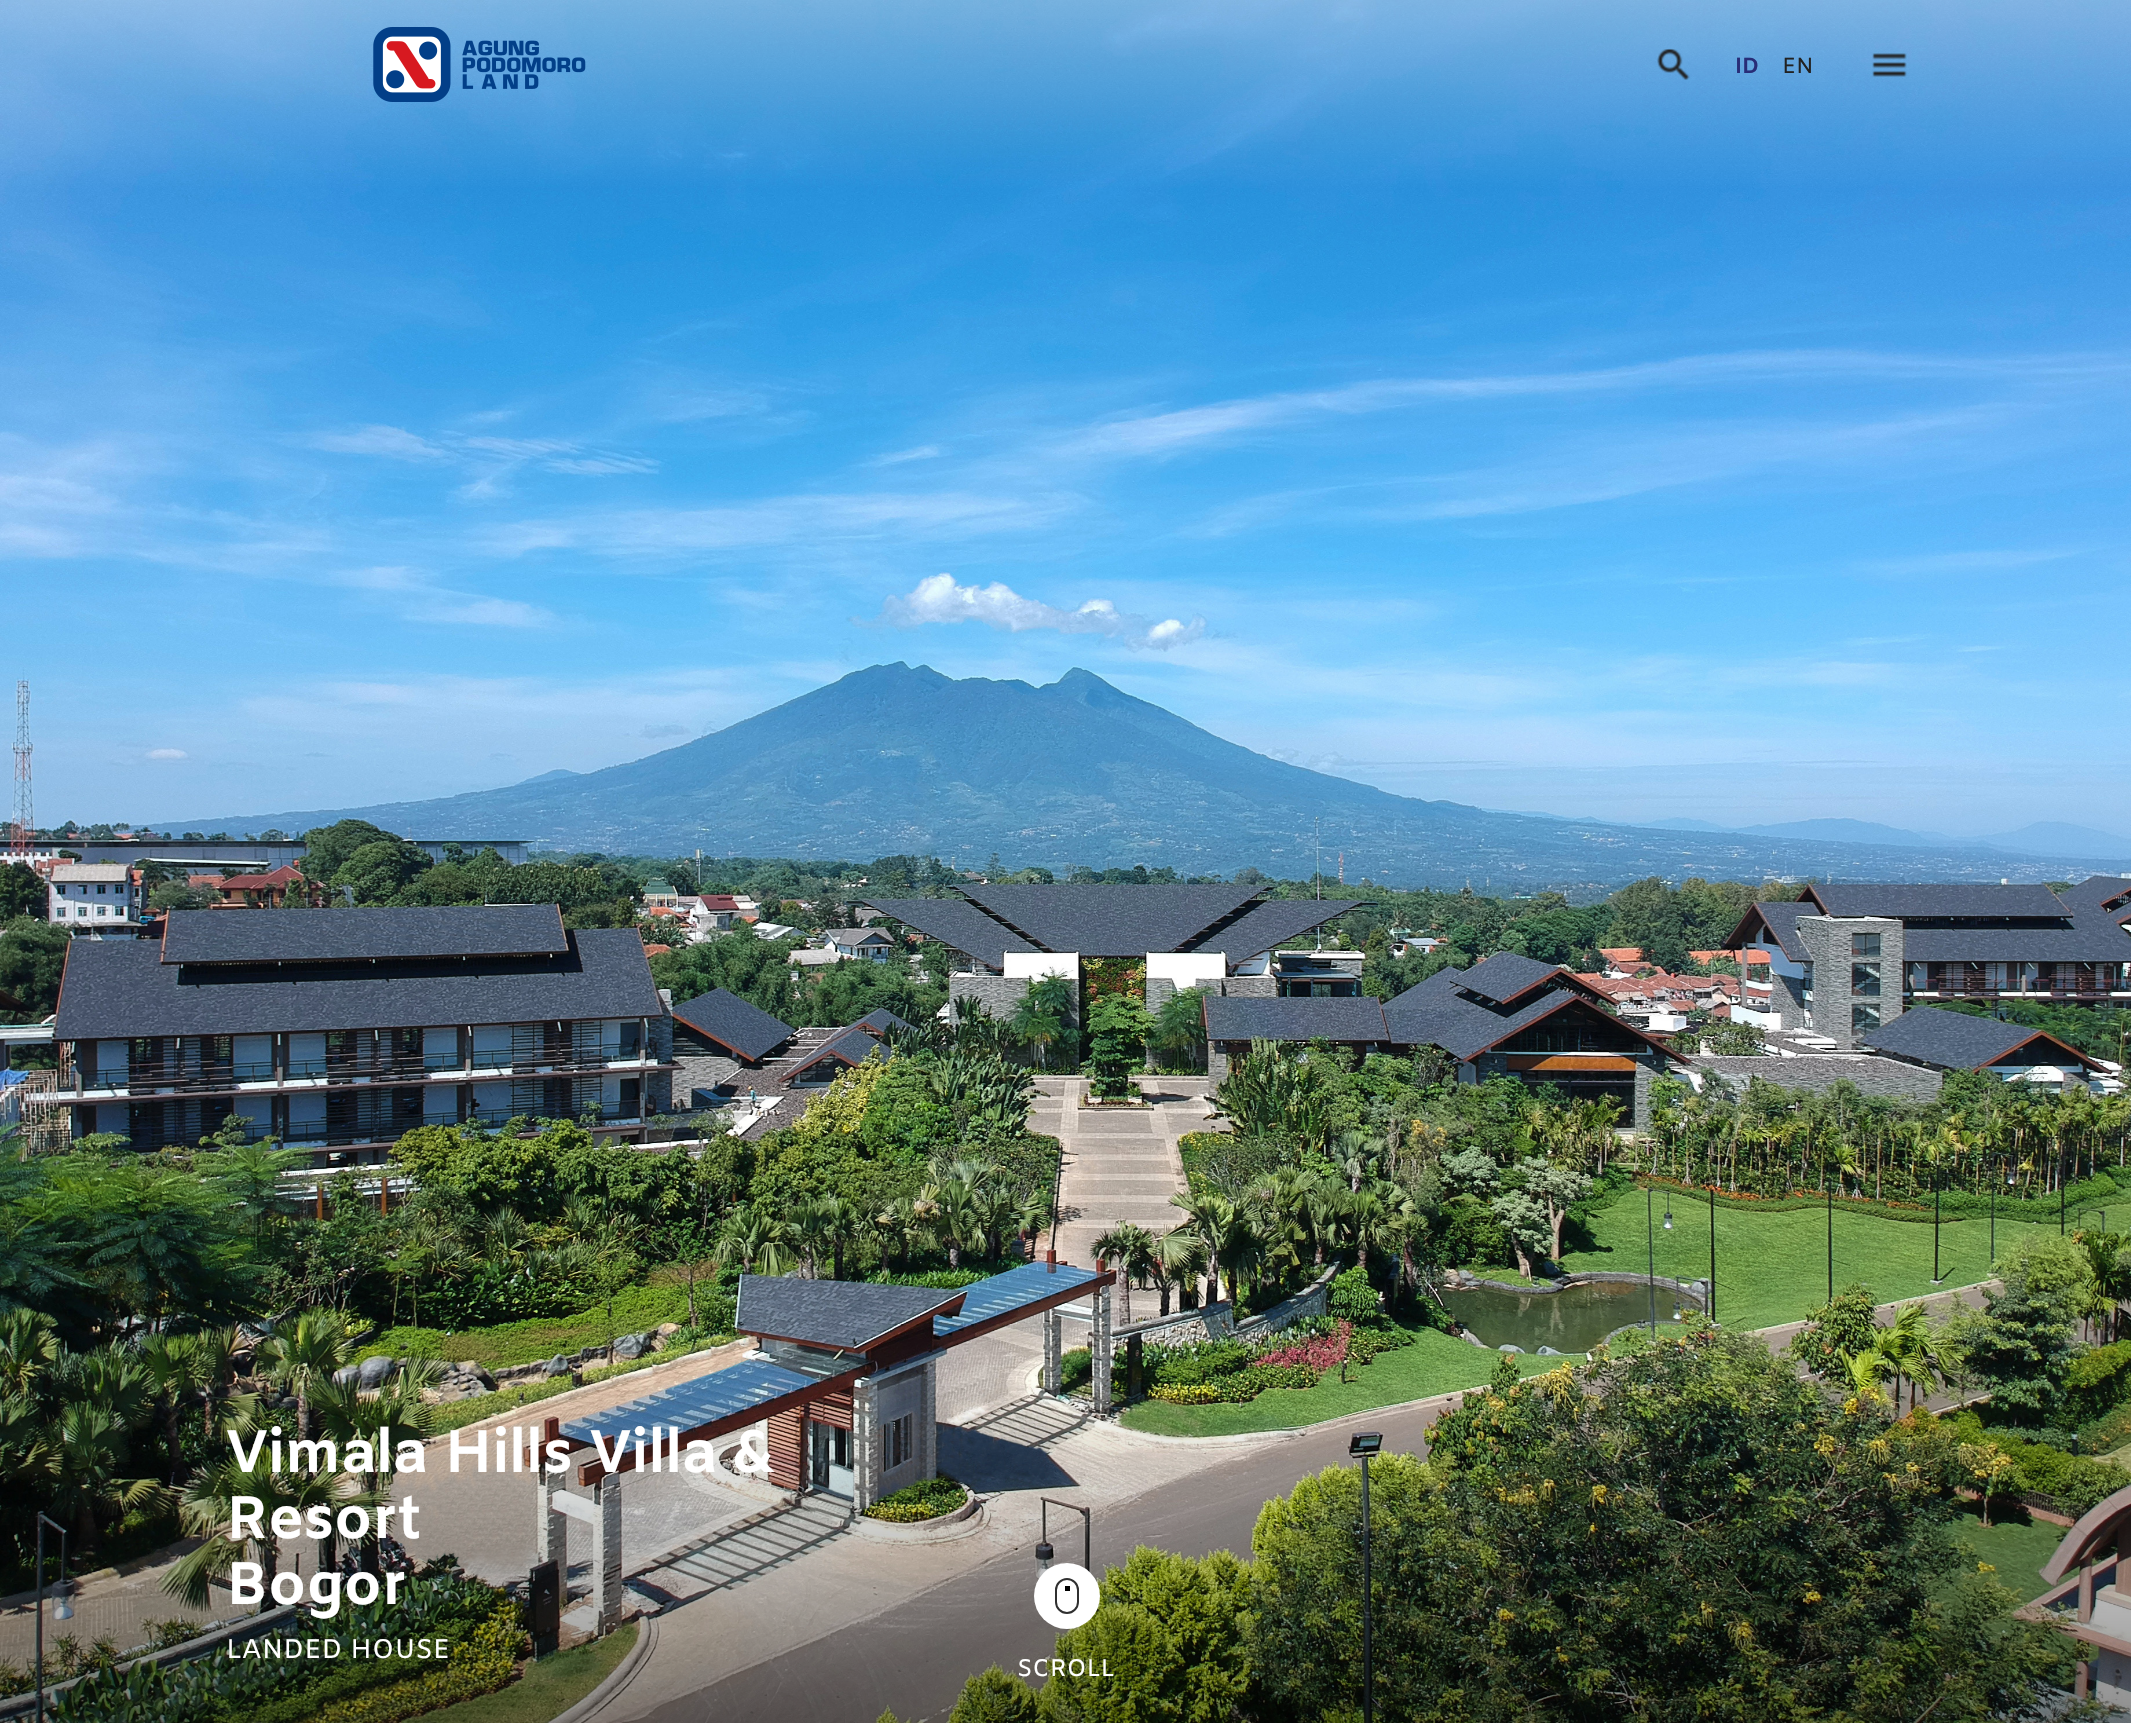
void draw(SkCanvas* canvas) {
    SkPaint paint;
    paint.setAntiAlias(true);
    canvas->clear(0xFFFFFFFF);
    canvas->drawImageRect(SkImages::DeferredFromEncodedData(SkData::MakeFromFileName("img4.png")), SkRect::MakeXYWH(0, 0, 2131, 1723), SkSamplingOptions());
    canvas->drawImageRect(SkImages::DeferredFromEncodedData(SkData::MakeFromFileName("img1.png")), SkRect::MakeXYWH(373, 27, 213, 75), SkSamplingOptions());
    canvas->drawImageRect(SkImages::DeferredFromEncodedData(SkData::MakeFromFileName("img2.png")), SkRect::MakeXYWH(1657, 49, 33, 31), SkSamplingOptions());
    SkFont font1(fontMgr->matchFamilyStyle("Amiko", SkFontStyle::Bold()), 22);
    font1.setSubpixel(true);
    paint.setColor(0xFF282D77);
    canvas->drawString("ID", 1735, 73, font1, paint);
    SkFont font2(fontMgr->matchFamilyStyle("Amiko", SkFontStyle::Normal()), 22);
    font2.setSubpixel(true);
    paint.setColor(0xFF212121);
    canvas->drawString("EN", 1782, 73, font2, paint);
    canvas->drawImageRect(SkImages::DeferredFromEncodedData(SkData::MakeFromFileName("img3.png")), SkRect::MakeXYWH(1872, 53, 35, 24), SkSamplingOptions());
    SkFont font3(fontMgr->matchFamilyStyle("Amiko", SkFontStyle::Bold()), 60);
    font3.setSubpixel(true);
    paint.setColor(0xFFFFFFFF);
    canvas->drawString("Vimala Hills Villa &", 226, 1472, font3, paint);
    canvas->drawString("Resort", 226, 1538, font3, paint);
    canvas->drawString("Bogor", 226, 1604, font3, paint);
    SkFont font4(fontMgr->matchFamilyStyle("Amiko", SkFontStyle::Normal()), 27);
    font4.setSubpixel(true);
    canvas->drawString("LANDED HOUSE", 226, 1658, font4, paint);
    canvas->drawCircle(1067, 1596, 33, paint);
    paint.setStyle(SkPaint::kStroke_Style);
    paint.setStrokeWidth(2);
    paint.setColor(0xFF303030);
    canvas->drawRoundRect(SkRect::MakeXYWH(1056, 1579, 22, 34), 11, 11, paint);
    paint.setStyle(SkPaint::kFill_Style);
    paint.setColor(0xFF000000);
    canvas->drawRect(SkRect::MakeXYWH(1065, 1586, 5, 5), paint);
    SkFont font5(fontMgr->matchFamilyStyle("Amiko", SkFontStyle::Normal()), 24);
    font5.setSubpixel(true);
    paint.setColor(0xFFFFFFFF);
    canvas->drawString("SCROLL", 1017, 1676, font5, paint);
}
